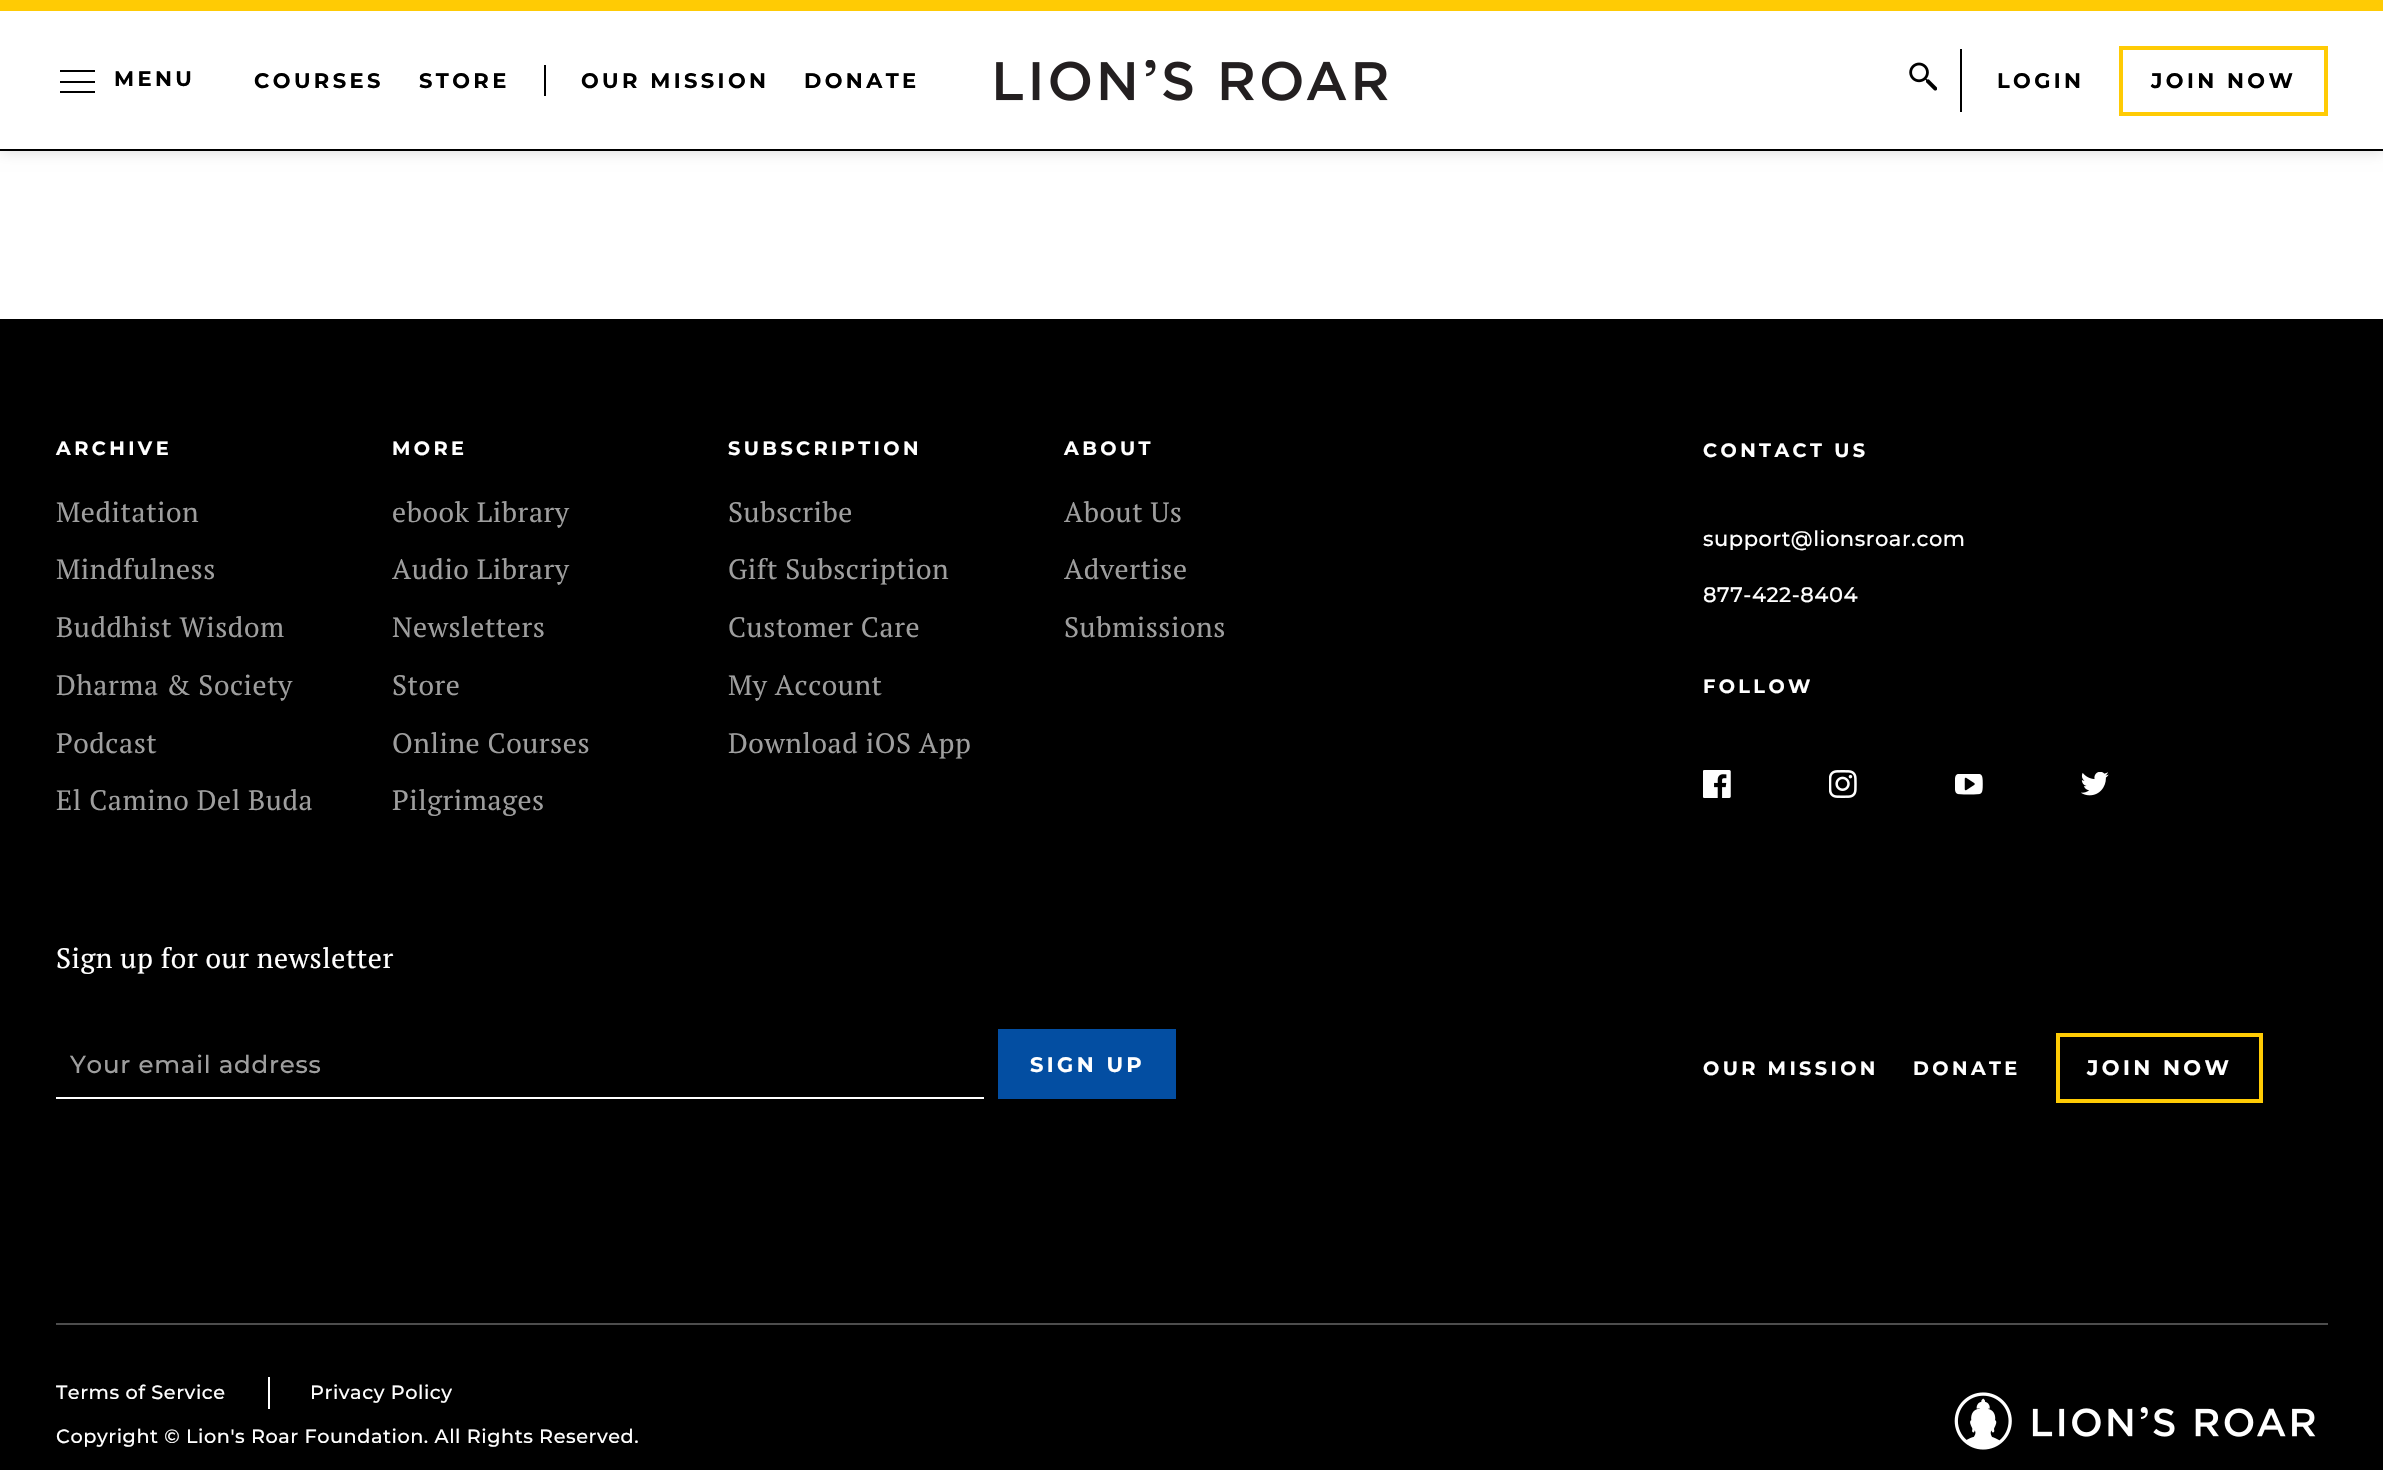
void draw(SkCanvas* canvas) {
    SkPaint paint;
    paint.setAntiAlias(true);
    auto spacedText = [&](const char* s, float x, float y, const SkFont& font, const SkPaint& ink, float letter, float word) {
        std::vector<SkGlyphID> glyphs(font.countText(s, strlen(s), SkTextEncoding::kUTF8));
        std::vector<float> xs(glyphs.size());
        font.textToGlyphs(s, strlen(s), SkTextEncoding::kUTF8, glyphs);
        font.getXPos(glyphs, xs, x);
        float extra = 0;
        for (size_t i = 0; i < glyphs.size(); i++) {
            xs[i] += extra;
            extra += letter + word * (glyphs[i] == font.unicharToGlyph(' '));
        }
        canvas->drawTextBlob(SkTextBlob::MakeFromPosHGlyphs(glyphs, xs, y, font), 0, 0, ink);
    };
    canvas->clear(0xFFFFFFFF);
    paint.setColor(0x26000000);
    paint.setMaskFilter(SkMaskFilter::MakeBlur(kNormal_SkBlurStyle, 7));
    canvas->drawRect(SkRect::MakeXYWH(0, 0, 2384, 151), paint);
    paint.setMaskFilter(nullptr);
    paint.setColor(0xFFFFFFFF);
    canvas->drawRect(SkRect::MakeXYWH(0, 11, 2383, 138), paint);
    paint.setColor(0xFFFFCB04);
    canvas->drawRect(SkRect::MakeXYWH(0, 0, 2383, 11), paint);
    paint.setColor(0xFF000000);
    canvas->drawRect(SkRect::MakeXYWH(60, 70, 35, 2), paint);
    canvas->drawRect(SkRect::MakeXYWH(60, 91, 35, 2), paint);
    canvas->drawRect(SkRect::MakeXYWH(60, 81, 35, 2), paint);
    SkFont font1(fontMgr->matchFamilyStyle("Montserrat", SkFontStyle(100, SkFontStyle::kNormal_Width, SkFontStyle::kUpright_Slant)), 21);
    font1.setSubpixel(true);
    spacedText("MENU", 114, 86, font1, paint, 3.4f, 0);
    spacedText("COURSES", 254, 88, font1, paint, 3.4f, 0);
    canvas->drawRect(SkRect::MakeXYWH(544, 65, 2, 31), paint);
    spacedText("STORE", 419, 88, font1, paint, 3.4f, 0);
    spacedText("OUR MISSION", 581, 88, font1, paint, 3.4f, 0);
    spacedText("DONATE", 804, 88, font1, paint, 3.4f, 0);
    canvas->drawImageRect(SkImages::DeferredFromEncodedData(SkData::MakeFromFileName("img1.png")), SkRect::MakeXYWH(996, 60, 392, 41), SkSamplingOptions());
    canvas->drawImageRect(SkImages::DeferredFromEncodedData(SkData::MakeFromFileName("img2.png")), SkRect::MakeXYWH(1909, 62, 28, 29), SkSamplingOptions());
    canvas->drawRect(SkRect::MakeXYWH(1960, 49, 2, 63), paint);
    spacedText("LOGIN", 1997, 88, font1, paint, 3.4f, 0);
    paint.setStyle(SkPaint::kStroke_Style);
    paint.setStrokeWidth(4);
    paint.setColor(0xFFFFCB04);
    canvas->drawRect(SkRect::MakeXYWH(2121, 48, 205, 66), paint);
    paint.setStyle(SkPaint::kFill_Style);
    paint.setColor(0xFF000000);
    spacedText("JOIN NOW", 2151, 88, font1, paint, 3.4f, 0);
    canvas->drawRect(SkRect::MakeXYWH(0, 149, 2383, 2), paint);
    canvas->drawRect(SkRect::MakeXYWH(0, 319, 2383, 1151), paint);
    SkFont font2(fontMgr->matchFamilyStyle("Montserrat", SkFontStyle(100, SkFontStyle::kNormal_Width, SkFontStyle::kUpright_Slant)), 19.25f);
    font2.setSubpixel(true);
    paint.setColor(0xFFFFFFFF);
    spacedText("ARCHIVE", 56, 455, font2, paint, 3.4f, 0);
    SkFont font3(fontMgr->matchFamilyStyle("PT Serif", SkFontStyle::Normal()), 28);
    font3.setSubpixel(true);
    paint.setColor(0xFF9E9E9E);
    spacedText("Meditation", 56, 522, font3, paint, 0.55f, 0);
    spacedText("Mindfulness", 56, 579, font3, paint, 0.55f, 0);
    spacedText("Buddhist Wisdom", 56, 637, font3, paint, 0.55f, 0);
    spacedText("Dharma & Society", 56, 695, font3, paint, 0.55f, 0);
    spacedText("Podcast", 56, 753, font3, paint, 0.55f, 0);
    spacedText("El Camino Del Buda", 56, 810, font3, paint, 0.55f, 0);
    paint.setColor(0xFFFFFFFF);
    spacedText("MORE", 392, 455, font2, paint, 3.4f, 0);
    paint.setColor(0xFF9E9E9E);
    spacedText("ebook Library", 392, 522, font3, paint, 0.55f, 0);
    spacedText("Audio Library", 392, 579, font3, paint, 0.55f, 0);
    spacedText("Newsletters", 392, 637, font3, paint, 0.55f, 0);
    spacedText("Store", 392, 695, font3, paint, 0.55f, 0);
    spacedText("Online Courses", 392, 753, font3, paint, 0.55f, 0);
    spacedText("Pilgrimages", 392, 810, font3, paint, 0.55f, 0);
    paint.setColor(0xFFFFFFFF);
    spacedText("SUBSCRIPTION", 728, 455, font2, paint, 3.4f, 0);
    paint.setColor(0xFF9E9E9E);
    spacedText("Subscribe", 728, 522, font3, paint, 0.55f, 0);
    spacedText("Gift Subscription", 728, 579, font3, paint, 0.55f, 0);
    spacedText("Customer Care", 728, 637, font3, paint, 0.55f, 0);
    spacedText("My Account", 728, 695, font3, paint, 0.55f, 0);
    spacedText("Download iOS App", 728, 753, font3, paint, 0.55f, 0);
    paint.setColor(0xFFFFFFFF);
    spacedText("ABOUT", 1064, 455, font2, paint, 3.4f, 0);
    paint.setColor(0xFF9E9E9E);
    spacedText("About Us", 1064, 522, font3, paint, 0.55f, 0);
    spacedText("Advertise", 1064, 579, font3, paint, 0.55f, 0);
    spacedText("Submissions", 1064, 637, font3, paint, 0.55f, 0);
    paint.setColor(0xFFFFFFFF);
    spacedText("CONTACT US", 1703, 457, font2, paint, 3.4f, 0);
    SkFont font4(fontMgr->matchFamilyStyle("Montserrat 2", SkFontStyle(100, SkFontStyle::kNormal_Width, SkFontStyle::kUpright_Slant)), 21);
    font4.setSubpixel(true);
    spacedText("support@lionsroar.com", 1703, 546, font4, paint, 0.55f, 0);
    spacedText("877-422-8404", 1703, 602, font4, paint, 0.55f, 0);
    spacedText("FOLLOW", 1703, 693, font2, paint, 3.4f, 0);
    canvas->drawImageRect(SkImages::DeferredFromEncodedData(SkData::MakeFromFileName("img3.png")), SkRect::MakeXYWH(1703, 770, 28, 28), SkSamplingOptions());
    canvas->drawImageRect(SkImages::DeferredFromEncodedData(SkData::MakeFromFileName("img4.png")), SkRect::MakeXYWH(1829, 770, 28, 28), SkSamplingOptions());
    canvas->drawImageRect(SkImages::DeferredFromEncodedData(SkData::MakeFromFileName("img5.png")), SkRect::MakeXYWH(1955, 774, 28, 21), SkSamplingOptions());
    canvas->drawImageRect(SkImages::DeferredFromEncodedData(SkData::MakeFromFileName("img6.png")), SkRect::MakeXYWH(2081, 772, 28, 24), SkSamplingOptions());
    spacedText("Sign up for our newsletter", 56, 968, font3, paint, 0.55f, 0);
    canvas->drawRect(SkRect::MakeXYWH(56, 1097, 928, 2), paint);
    SkFont font5(fontMgr->matchFamilyStyle("Montserrat 2", SkFontStyle(100, SkFontStyle::kNormal_Width, SkFontStyle::kUpright_Slant)), 24.5f);
    font5.setSubpixel(true);
    paint.setColor(0xFF9E9E9E);
    spacedText("Your email address", 70, 1073, font5, paint, 0.75f, 0);
    paint.setColor(0xFF034EA2);
    canvas->drawRect(SkRect::MakeXYWH(998, 1029, 178, 70), paint);
    paint.setColor(0xFFFFFFFF);
    spacedText("SIGN UP", 1030, 1072, font1, paint, 3.4f, 0);
    spacedText("OUR MISSION", 1703, 1075, font2, paint, 3.4f, 0);
    spacedText("DONATE", 1913, 1075, font2, paint, 3.4f, 0);
    paint.setStyle(SkPaint::kStroke_Style);
    paint.setColor(0xFFFFCB04);
    canvas->drawRect(SkRect::MakeXYWH(2058, 1035, 203, 66), paint);
    paint.setStyle(SkPaint::kFill_Style);
    paint.setColor(0xFFFFFFFF);
    spacedText("JOIN NOW", 2087, 1075, font1, paint, 3.4f, 0);
    paint.setColor(0xFF4D4D4D);
    canvas->drawRect(SkRect::MakeXYWH(56, 1323, 2272, 2), paint);
    SkFont font6(fontMgr->matchFamilyStyle("Montserrat 2", SkFontStyle(100, SkFontStyle::kNormal_Width, SkFontStyle::kUpright_Slant)), 19.25f);
    font6.setSubpixel(true);
    paint.setColor(0xFFFFFFFF);
    spacedText("Terms of Service", 56, 1399, font6, paint, 0.55f, 0);
    canvas->drawRect(SkRect::MakeXYWH(268, 1377, 2, 32), paint);
    spacedText("Privacy Policy", 310, 1399, font6, paint, 0.55f, 0);
    spacedText("Copyright © Lion's Roar Foundation. All Rights Reserved.", 56, 1443, font6, paint, 0.55f, 0);
    canvas->drawImageRect(SkImages::DeferredFromEncodedData(SkData::MakeFromFileName("img7.png")), SkRect::MakeXYWH(1954, 1392, 362, 58), SkSamplingOptions());
}
